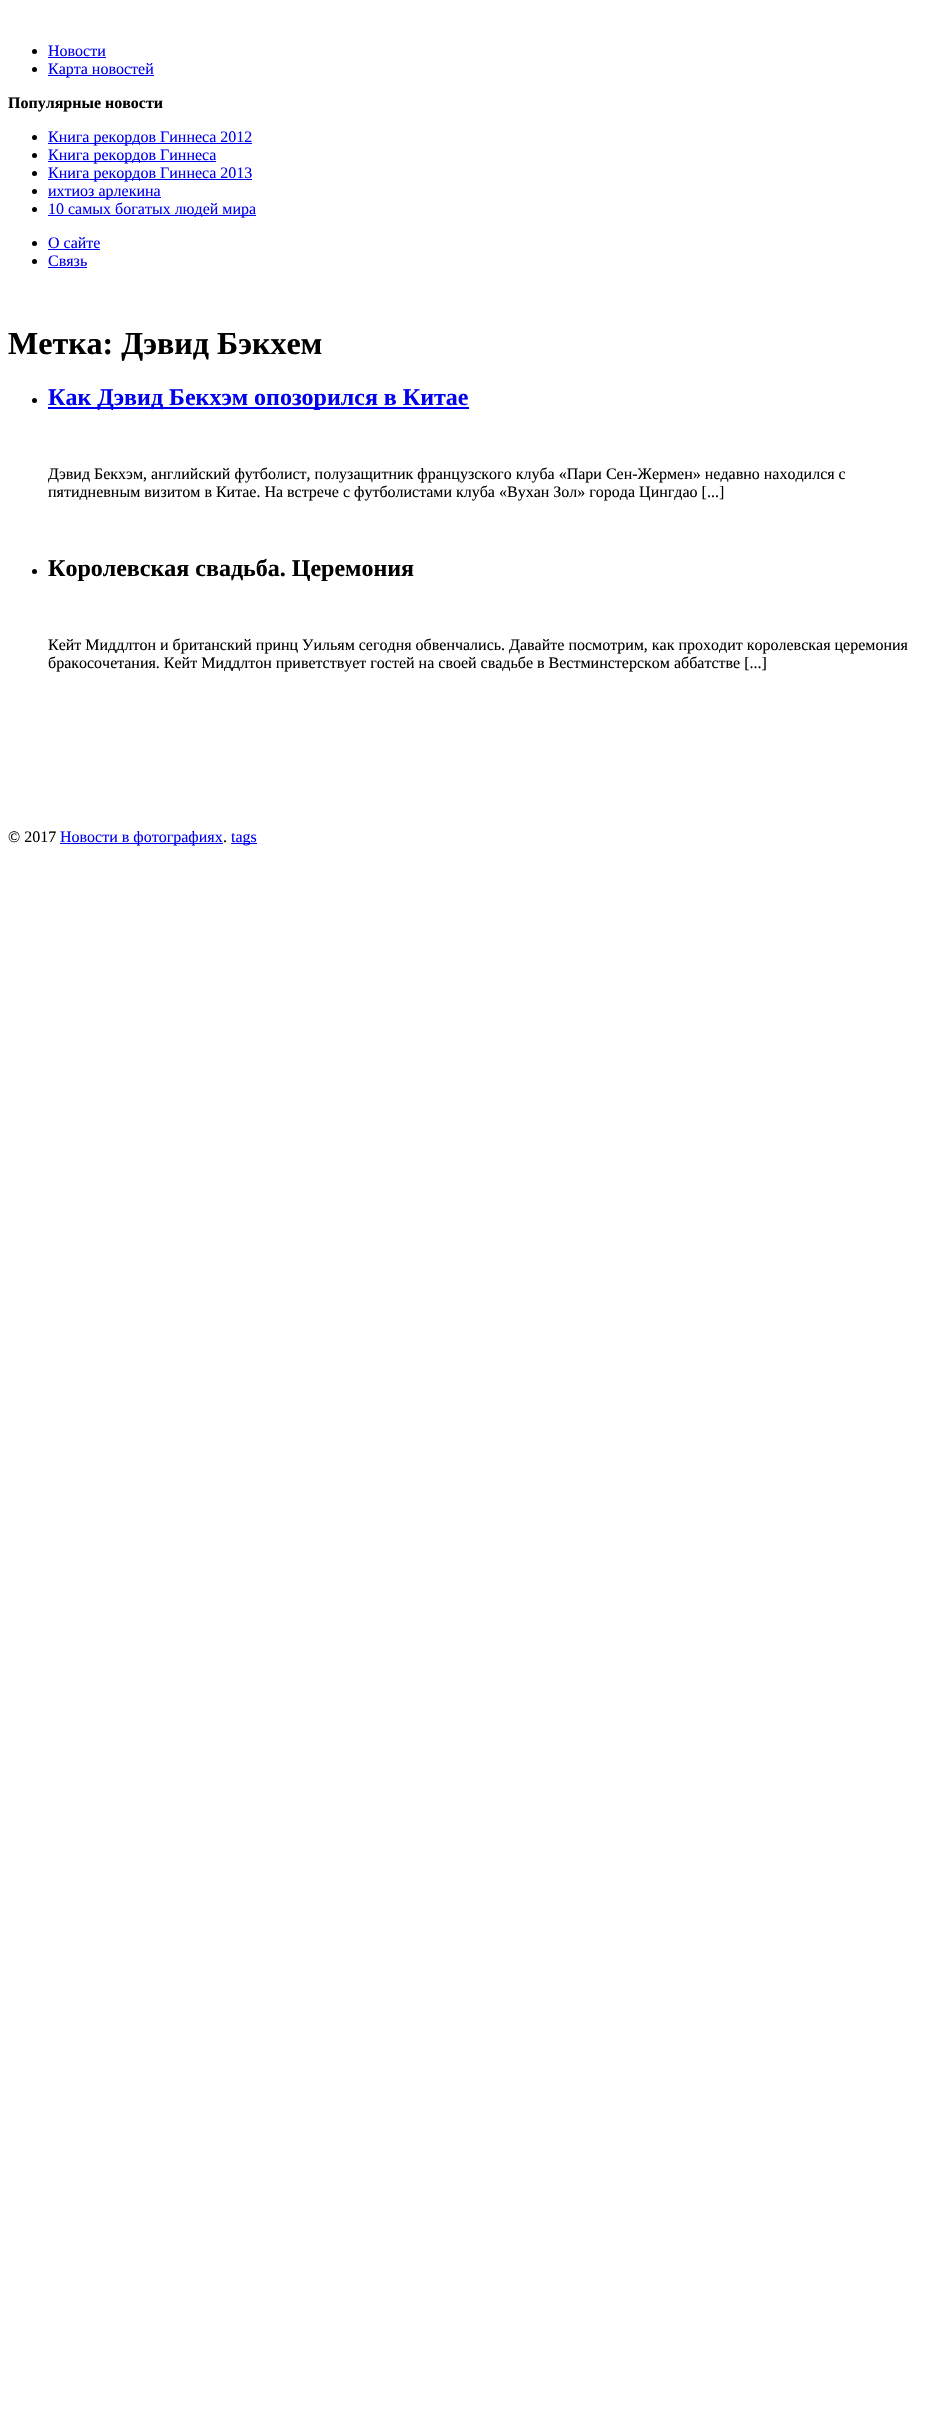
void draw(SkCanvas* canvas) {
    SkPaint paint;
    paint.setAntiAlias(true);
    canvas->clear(0xFFFFFFFF);
    paint.setColor(0xFF000000);
    canvas->drawCircle(34.5f, 51.5f, 2.5f, paint);
    SkFont font1(fontMgr->matchFamilyStyle("Liberation Serif", SkFontStyle::Normal()), 16);
    font1.setSubpixel(true);
    paint.setColor(0xFF0000EE);
    canvas->drawString("Новости", 48, 56, font1, paint);
    canvas->drawRect(SkRect::MakeXYWH(48, 57, 58, 1), paint);
    paint.setColor(0xFF000000);
    canvas->drawCircle(34.5f, 69.5f, 2.5f, paint);
    paint.setColor(0xFF0000EE);
    canvas->drawRect(SkRect::MakeXYWH(48, 75, 106, 1), paint);
    canvas->drawString("Карта новостей", 48, 74, font1, paint);
    SkFont font2(fontMgr->matchFamilyStyle("Liberation Serif", SkFontStyle::Bold()), 16);
    font2.setSubpixel(true);
    paint.setColor(0xFF000000);
    canvas->drawString("Популярные новости", 8, 108, font2, paint);
    canvas->drawCircle(34.5f, 137.5f, 2.5f, paint);
    paint.setColor(0xFF0000EE);
    canvas->drawRect(SkRect::MakeXYWH(48, 143, 204, 1), paint);
    canvas->drawString("Книга рекордов Гиннеса 2012", 48, 142, font1, paint);
    paint.setColor(0xFF000000);
    canvas->drawCircle(34.5f, 155.5f, 2.5f, paint);
    paint.setColor(0xFF0000EE);
    canvas->drawRect(SkRect::MakeXYWH(48, 161, 168, 1), paint);
    canvas->drawString("Книга рекордов Гиннеса", 48, 160, font1, paint);
    paint.setColor(0xFF000000);
    canvas->drawCircle(34.5f, 173.5f, 2.5f, paint);
    paint.setColor(0xFF0000EE);
    canvas->drawRect(SkRect::MakeXYWH(48, 179, 204, 1), paint);
    canvas->drawString("Книга рекордов Гиннеса 2013", 48, 178, font1, paint);
    paint.setColor(0xFF000000);
    canvas->drawCircle(34.5f, 191.5f, 2.5f, paint);
    paint.setColor(0xFF0000EE);
    canvas->drawRect(SkRect::MakeXYWH(48, 197, 113, 1), paint);
    canvas->drawString("ихтиоз арлекина", 48, 196, font1, paint);
    paint.setColor(0xFF000000);
    canvas->drawCircle(34.5f, 209.5f, 2.5f, paint);
    paint.setColor(0xFF0000EE);
    canvas->drawRect(SkRect::MakeXYWH(48, 215, 208, 1), paint);
    canvas->drawString("10 самых богатых людей мира", 48, 214, font1, paint);
    paint.setColor(0xFF000000);
    canvas->drawCircle(34.5f, 243.5f, 2.5f, paint);
    paint.setColor(0xFF0000EE);
    canvas->drawString("О сайте", 48, 248, font1, paint);
    canvas->drawRect(SkRect::MakeXYWH(48, 249, 52, 1), paint);
    paint.setColor(0xFF000000);
    canvas->drawCircle(34.5f, 261.5f, 2.5f, paint);
    paint.setColor(0xFF0000EE);
    canvas->drawString("Связь", 48, 266, font1, paint);
    canvas->drawRect(SkRect::MakeXYWH(48, 267, 39, 1), paint);
    SkFont font3(fontMgr->matchFamilyStyle("Liberation Serif", SkFontStyle::Bold()), 32);
    font3.setSubpixel(true);
    paint.setColor(0xFF000000);
    canvas->drawString("Метка: Дэвид Бэкхем", 8, 354, font3, paint);
    canvas->drawCircle(34.5f, 400.5f, 2.5f, paint);
    paint.setColor(0xFF0000EE);
    canvas->drawRect(SkRect::MakeXYWH(48, 407, 421, 2), paint);
    SkFont font4(fontMgr->matchFamilyStyle("Liberation Serif", SkFontStyle::Bold()), 24);
    font4.setSubpixel(true);
    canvas->drawString("Как Дэвид Бекхэм опозорился в Китае", 48, 405, font4, paint);
    paint.setColor(0xFF000000);
    canvas->drawString("Дэвид Бекхэм, английский футболист, полузащитник французского клуба «Пари Сен-Жермен» недавно находился с", 48, 479, font1, paint);
    canvas->drawString("пятидневным визитом в Китае. На встрече с футболистами клуба «Вухан Зол» города Цингдао [...]", 48, 497, font1, paint);
    canvas->drawCircle(34.5f, 571.5f, 2.5f, paint);
    canvas->drawString("Королевская свадьба. Церемония", 48, 576, font4, paint);
    canvas->drawString("Кейт Миддлтон и британский принц Уильям сегодня обвенчались. Давайте посмотрим, как проходит королевская церемония", 48, 650, font1, paint);
    canvas->drawString("бракосочетания. Кейт Миддлтон приветствует гостей на своей свадьбе в Вестминстерском аббатстве [...]", 48, 668, font1, paint);
    canvas->drawString("© 2017", 8, 842, font1, paint);
    paint.setColor(0xFF0000EE);
    canvas->drawRect(SkRect::MakeXYWH(60, 843, 163, 1), paint);
    canvas->drawString("Новости в фотографиях", 60, 842, font1, paint);
    paint.setColor(0xFF000000);
    canvas->drawString(".", 223, 842, font1, paint);
    paint.setColor(0xFF0000EE);
    canvas->drawRect(SkRect::MakeXYWH(231, 843, 26, 1), paint);
    canvas->drawString("tags", 231, 842, font1, paint);
}
